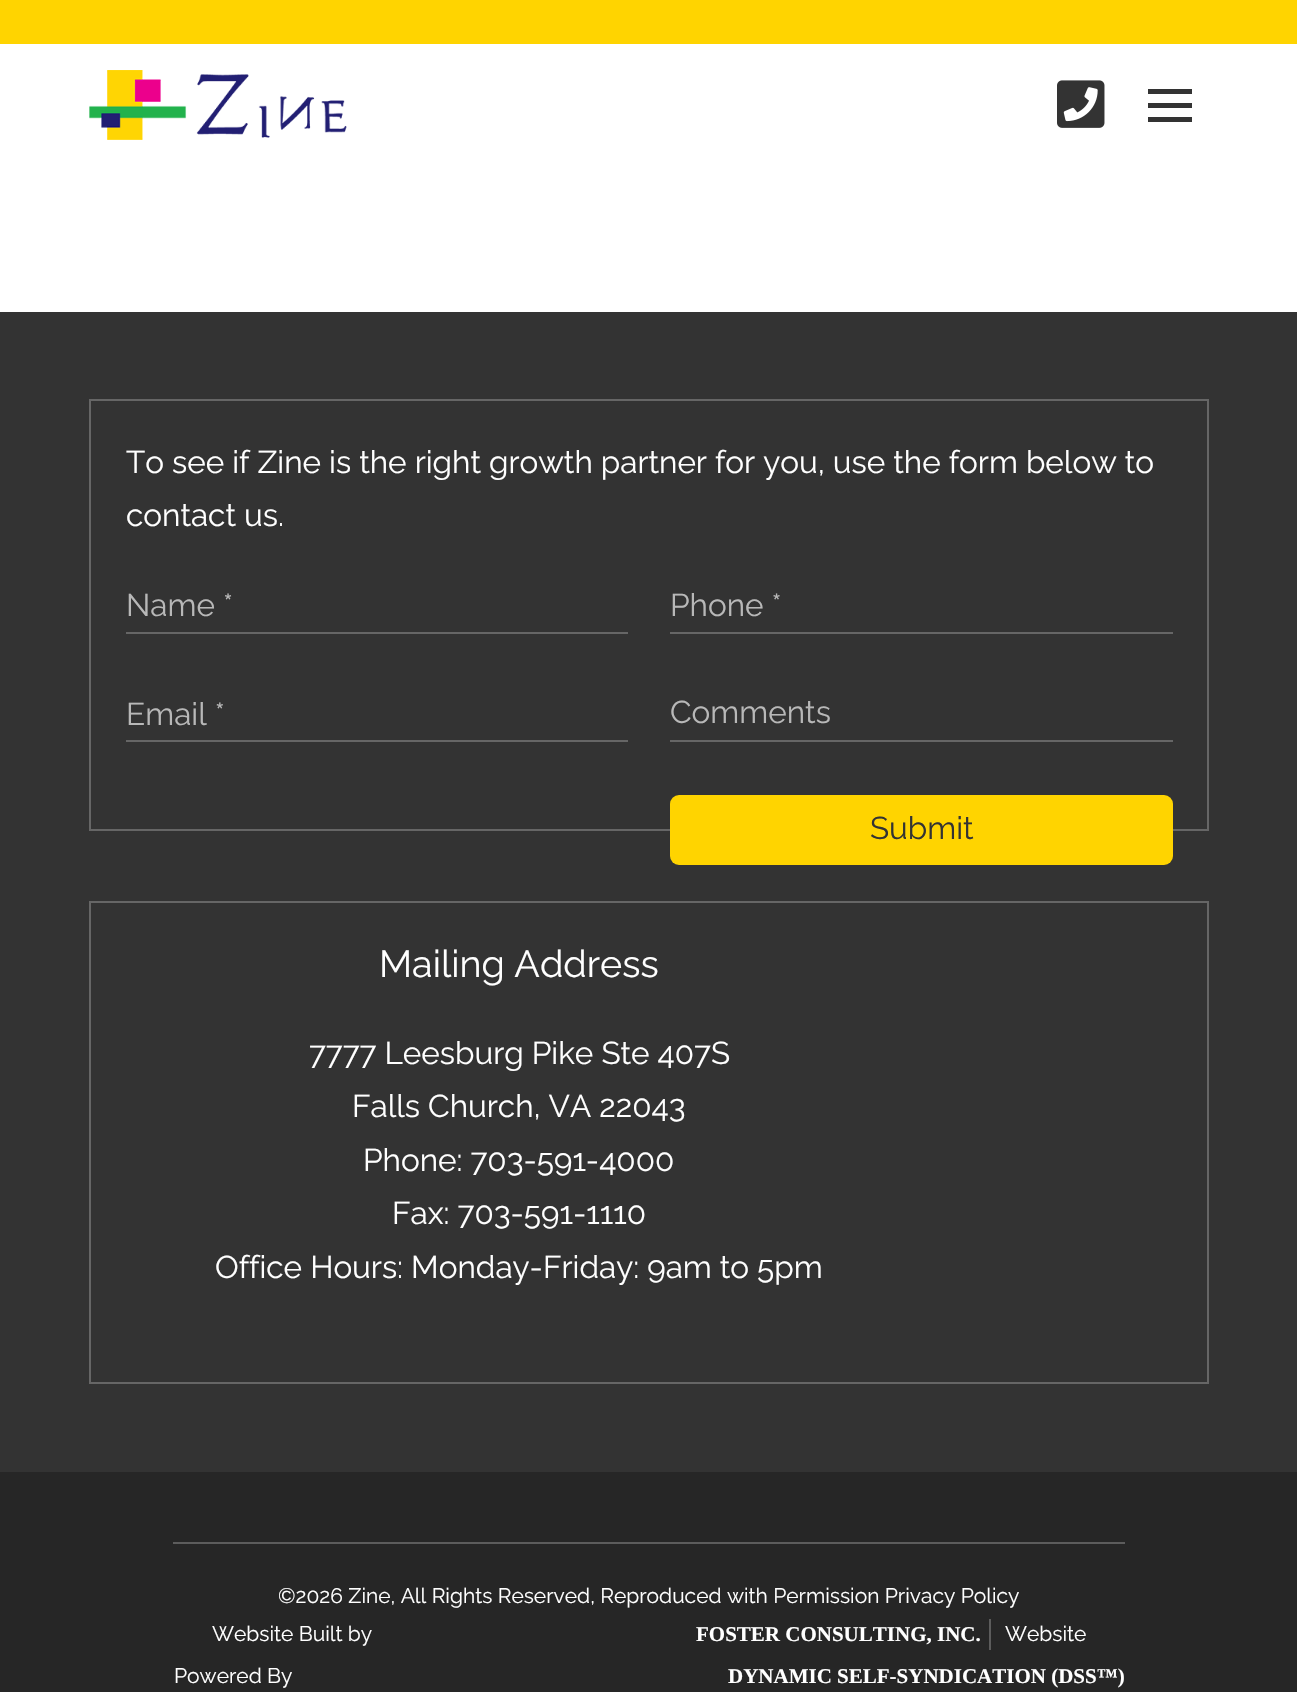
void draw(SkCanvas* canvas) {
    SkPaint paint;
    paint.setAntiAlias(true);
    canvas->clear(0xFFFFFFFF);
    paint.setColor(0xFFFFD400);
    canvas->drawRect(SkRect::MakeXYWH(0, 0, 1297, 44), paint);
    canvas->drawImageRect(SkImages::DeferredFromEncodedData(SkData::MakeFromFileName("img1.png")), SkRect::MakeXYWH(89, 70, 258, 70), SkSamplingOptions());
    canvas->drawImageRect(SkImages::DeferredFromEncodedData(SkData::MakeFromFileName("img2.png")), SkRect::MakeXYWH(1057, 80, 48, 48), SkSamplingOptions());
    paint.setColor(0xFF333333);
    canvas->drawRect(SkRect::MakeXYWH(1148, 89, 44, 5), paint);
    canvas->drawRect(SkRect::MakeXYWH(1148, 103, 44, 5), paint);
    canvas->drawRect(SkRect::MakeXYWH(1148, 117, 44, 5), paint);
    canvas->drawRect(SkRect::MakeXYWH(0, 312, 1297, 1160), paint);
    paint.setStyle(SkPaint::kStroke_Style);
    paint.setStrokeWidth(2);
    paint.setColor(0xFF666666);
    canvas->drawRect(SkRect::MakeXYWH(90, 400, 1118, 430), paint);
    SkFont font1(fontMgr->matchFamilyStyle("Raleway", SkFontStyle::Normal()), 31.5f);
    font1.setSubpixel(true);
    paint.setStyle(SkPaint::kFill_Style);
    paint.setColor(0xFFFFFFFF);
    canvas->drawString("To see if Zine is the right growth partner for you, use the form below to", 126, 473, font1, paint);
    canvas->drawString("contact us.", 126, 526, font1, paint);
    paint.setColor(0xFF666666);
    canvas->drawRect(SkRect::MakeXYWH(126, 632, 502, 2), paint);
    paint.setColor(0xFFB8B8B8);
    canvas->drawString("Name *", 126, 616, font1, paint);
    paint.setColor(0xFF666666);
    canvas->drawRect(SkRect::MakeXYWH(670, 632, 503, 2), paint);
    paint.setColor(0xFFB8B8B8);
    canvas->drawString("Phone *", 670, 616, font1, paint);
    paint.setColor(0xFF666666);
    canvas->drawRect(SkRect::MakeXYWH(126, 740, 502, 2), paint);
    paint.setColor(0xFFB8B8B8);
    canvas->drawString("Email *", 126, 725, font1, paint);
    paint.setColor(0xFF666666);
    canvas->drawRect(SkRect::MakeXYWH(670, 740, 503, 2), paint);
    paint.setColor(0xFFB8B8B8);
    canvas->drawString("Comments", 670, 723, font1, paint);
    paint.setColor(0xFFFFD400);
    canvas->drawRoundRect(SkRect::MakeXYWH(670, 795, 503, 70), 9, 9, paint);
    paint.setColor(0xFF333333);
    canvas->drawString("Submit", 870, 839, font1, paint);
    paint.setStyle(SkPaint::kStroke_Style);
    paint.setColor(0xFF666666);
    canvas->drawRect(SkRect::MakeXYWH(90, 902, 1118, 481), paint);
    SkFont font2(fontMgr->matchFamilyStyle("Raleway", SkFontStyle::Normal()), 37.75f);
    font2.setSubpixel(true);
    paint.setStyle(SkPaint::kFill_Style);
    paint.setColor(0xFFFFFFFF);
    canvas->drawString("Mailing Address", 379, 977, font2, paint);
    canvas->drawString("7777 Leesburg Pike Ste 407S", 309, 1064, font1, paint);
    canvas->drawString("Falls Church, VA 22043", 352, 1117, font1, paint);
    canvas->drawString("Phone: 703-591-4000", 363, 1171, font1, paint);
    canvas->drawString("Fax: 703-591-1110", 392, 1224, font1, paint);
    canvas->drawString("Office Hours: Monday-Friday: 9am to 5pm", 215, 1278, font1, paint);
    paint.setColor(0xFF262626);
    canvas->drawRect(SkRect::MakeXYWH(0, 1472, 1297, 220), paint);
    paint.setColor(0xFF5C5C5C);
    canvas->drawRect(SkRect::MakeXYWH(173, 1542, 952, 2), paint);
    SkFont font3(fontMgr->matchFamilyStyle("Raleway", SkFontStyle::Normal()), 21);
    font3.setSubpixel(true);
    paint.setColor(0xFFFFFFFF);
    canvas->drawString("©2026 Zine, All Rights Reserved, Reproduced with Permission Privacy Policy", 278, 1603, font3, paint);
    canvas->drawString("Website Built by", 212, 1641, font3, paint);
    SkFont font4(fontMgr->matchFamilyStyle("Liberation Serif", SkFontStyle::Bold()), 21);
    font4.setSubpixel(true);
    canvas->drawString("FOSTER CONSULTING, INC.", 696, 1641, font4, paint);
    paint.setColor(0xFF5C5C5C);
    canvas->drawRect(SkRect::MakeXYWH(989, 1619, 2, 31), paint);
    paint.setColor(0xFFFFFFFF);
    canvas->drawString("Website", 1005, 1641, font3, paint);
    canvas->drawString("Powered By", 174, 1683, font3, paint);
    canvas->drawString("DYNAMIC SELF-SYNDICATION (DSS™)", 728, 1683, font4, paint);
}
